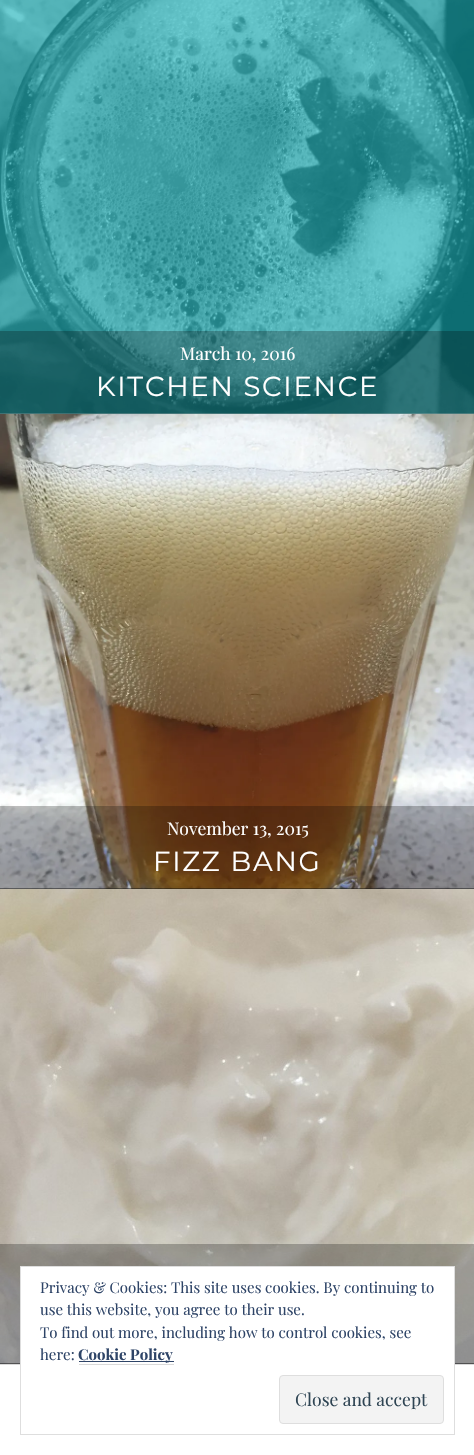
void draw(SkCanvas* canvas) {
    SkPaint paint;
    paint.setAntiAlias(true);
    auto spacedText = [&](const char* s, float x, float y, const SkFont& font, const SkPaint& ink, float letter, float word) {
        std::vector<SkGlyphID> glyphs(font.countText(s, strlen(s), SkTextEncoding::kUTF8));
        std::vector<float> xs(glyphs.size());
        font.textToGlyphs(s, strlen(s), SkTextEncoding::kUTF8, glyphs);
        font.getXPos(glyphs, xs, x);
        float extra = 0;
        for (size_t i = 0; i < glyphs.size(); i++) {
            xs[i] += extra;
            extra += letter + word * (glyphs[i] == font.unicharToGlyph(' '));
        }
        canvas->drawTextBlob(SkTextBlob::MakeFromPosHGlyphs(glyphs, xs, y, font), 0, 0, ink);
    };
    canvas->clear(0xFFFFFFFF);
    canvas->drawImageRect(SkImages::DeferredFromEncodedData(SkData::MakeFromFileName("img1.png")), SkRect::MakeXYWH(0, 0, 474, 414), SkSamplingOptions());
    paint.setColor(0xFF000000);
    canvas->drawRect(SkRect::MakeXYWH(0, 888, 474, 1), paint);
    canvas->drawImageRect(SkImages::DeferredFromEncodedData(SkData::MakeFromFileName("img2.png")), SkRect::MakeXYWH(0, 413, 474, 476), SkSamplingOptions());
    paint.setColor(0x40000000);
    canvas->drawRect(SkRect::MakeXYWH(0, 331, 474, 83), paint);
    SkFont font1(fontMgr->matchFamilyStyle("Playfair Display", SkFontStyle::Normal()), 17.5f);
    font1.setSubpixel(true);
    paint.setColor(0xFFFFFFFF);
    canvas->drawString("March 10, 2016", 180, 360, font1, paint);
    SkFont font2(fontMgr->matchFamilyStyle("Montserrat", SkFontStyle::Normal()), 27.5f);
    font2.setSubpixel(true);
    spacedText("KITCHEN SCIENCE", 96, 396, font2, paint, 1.75f, 0);
    paint.setColor(0xFF000000);
    canvas->drawRect(SkRect::MakeXYWH(0, 1363, 474, 1), paint);
    canvas->drawImageRect(SkImages::DeferredFromEncodedData(SkData::MakeFromFileName("img3.png")), SkRect::MakeXYWH(0, 888, 474, 476), SkSamplingOptions());
    paint.setColor(0x40000000);
    canvas->drawRect(SkRect::MakeXYWH(0, 806, 474, 83), paint);
    paint.setColor(0xFFFFFFFF);
    canvas->drawString("November 13, 2015", 167, 835, font1, paint);
    spacedText("FIZZ BANG", 153, 871, font2, paint, 1.75f, 0);
    paint.setColor(0x40000000);
    canvas->drawRect(SkRect::MakeXYWH(0, 1244, 474, 120), paint);
    paint.setColor(0xFFD9D9D9);
    canvas->drawRect(SkRect::MakeXYWH(0, 1364, 474, 1), paint);
    paint.setColor(0xFFFFFFFF);
    canvas->drawRect(SkRect::MakeXYWH(21, 1267, 433, 98), paint);
    paint.setStyle(SkPaint::kStroke_Style);
    paint.setStrokeWidth(1);
    paint.setColor(0xFFDEDEDE);
    canvas->drawRect(SkRect::MakeXYWH(20.5f, 1266.5f, 434, 168), paint);
    SkFont font3(fontMgr->matchFamilyStyle("Playfair Display", SkFontStyle::Normal()), 15);
    font3.setSubpixel(true);
    paint.setStyle(SkPaint::kFill_Style);
    paint.setColor(0xFF2E4467);
    canvas->drawString("Privacy & Cookies: This site uses cookies. By continuing to", 40, 1293, font3, paint);
    canvas->drawString("use this website, you agree to their use.", 40, 1315, font3, paint);
    canvas->drawString("To find out more, including how to control cookies, see", 40, 1338, font3, paint);
    canvas->drawString("here:", 40, 1360, font3, paint);
    canvas->drawRect(SkRect::MakeXYWH(79, 1361, 95, 1), paint);
    SkFont font4(fontMgr->matchFamilyStyle("Playfair Display", SkFontStyle::Bold()), 15);
    font4.setSubpixel(true);
    canvas->drawString("Cookie Policy", 78, 1360, font4, paint);
    paint.setColor(0xFFD9D9D9);
    canvas->drawRect(SkRect::MakeXYWH(79, 1364, 95, 1), paint);
    paint.setColor(0xFFF3F3F3);
    canvas->drawRoundRect(SkRect::MakeXYWH(279.5f, 1375.5f, 164, 48), 3.5f, 3.5f, paint);
    paint.setStyle(SkPaint::kStroke_Style);
    paint.setColor(0xFFDEDEDE);
    canvas->drawRoundRect(SkRect::MakeXYWH(279.5f, 1375.5f, 164, 48), 3.5f, 3.5f, paint);
    paint.setStyle(SkPaint::kFill_Style);
    paint.setColor(0xFF2E4453);
    canvas->drawString("Close and accept", 295, 1406, font1, paint);
}
